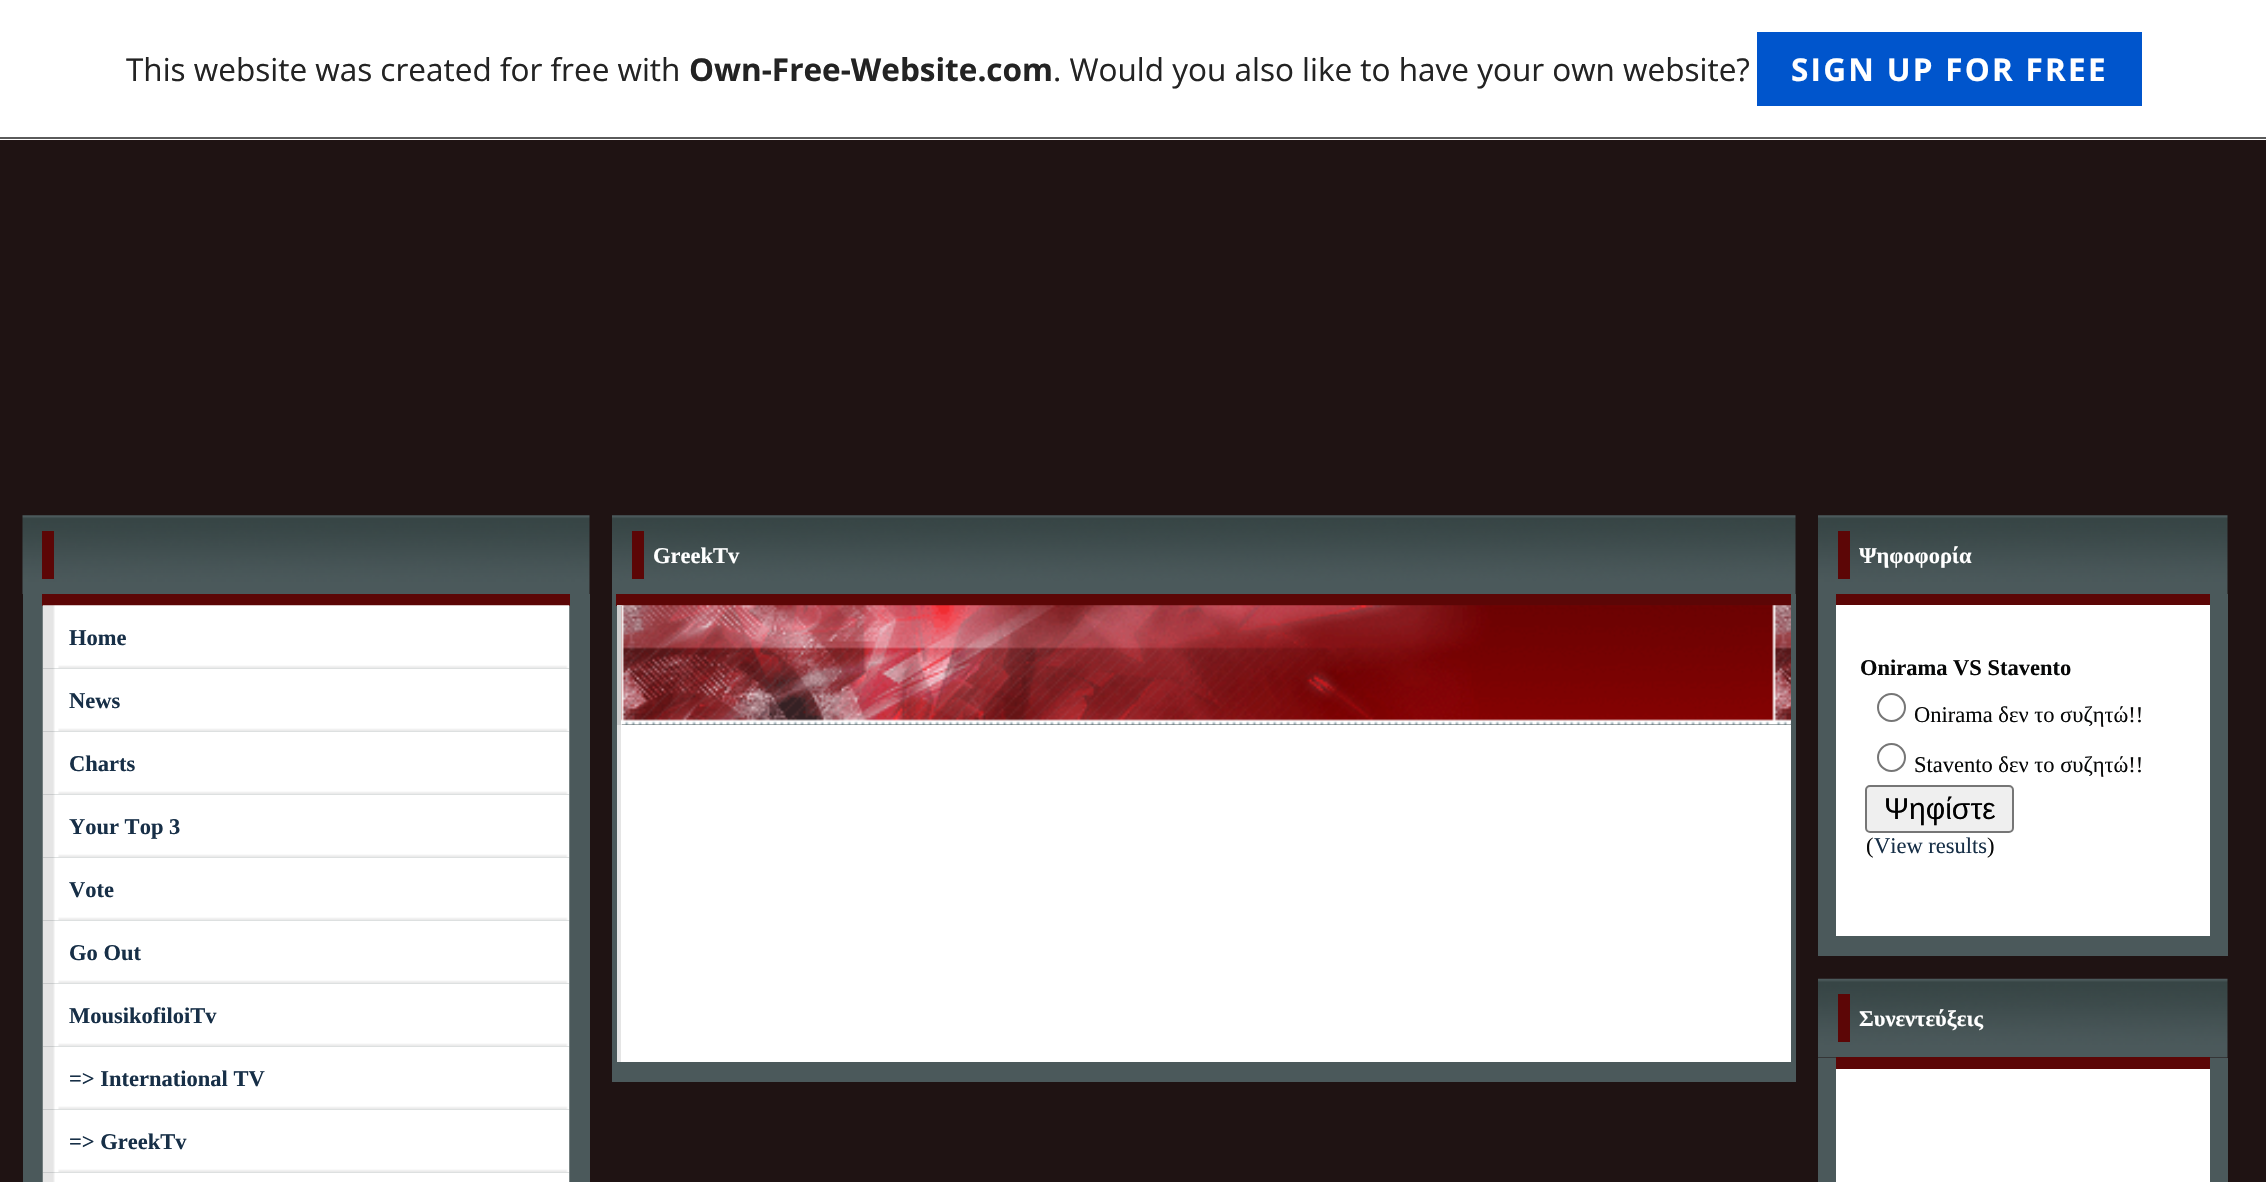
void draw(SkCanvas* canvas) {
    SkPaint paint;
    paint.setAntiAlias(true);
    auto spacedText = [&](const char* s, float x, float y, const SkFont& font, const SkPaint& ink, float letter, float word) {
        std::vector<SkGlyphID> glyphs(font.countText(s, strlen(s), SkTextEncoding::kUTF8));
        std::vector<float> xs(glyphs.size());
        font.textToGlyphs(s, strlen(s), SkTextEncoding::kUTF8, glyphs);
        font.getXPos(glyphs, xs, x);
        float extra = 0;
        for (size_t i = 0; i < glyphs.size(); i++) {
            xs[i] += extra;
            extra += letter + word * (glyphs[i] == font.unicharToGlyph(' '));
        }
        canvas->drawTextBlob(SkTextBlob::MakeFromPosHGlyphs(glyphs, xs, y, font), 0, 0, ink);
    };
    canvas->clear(0xFF1F1313);
    paint.setColor(0xFFFFFFFF);
    canvas->drawRect(SkRect::MakeXYWH(0, 0, 2266, 140), paint);
    paint.setColor(0xFF5A5A5A);
    canvas->drawRect(SkRect::MakeXYWH(0, 137, 2266, 2), paint);
    SkFont font1(fontMgr->matchFamilyStyle("Open Sans", SkFontStyle::Normal()), 31.5f);
    font1.setSubpixel(true);
    paint.setColor(0xFF232323);
    canvas->drawString("This website was created for free with", 126, 81, font1, paint);
    SkFont font2(fontMgr->matchFamilyStyle("Open Sans", SkFontStyle::Bold()), 31.5f);
    font2.setSubpixel(true);
    canvas->drawString("Own-Free-Website.com", 689, 81, font2, paint);
    canvas->drawString(". Would you also like to have your own website?", 1053, 81, font1, paint);
    paint.setColor(0xFF0055CC);
    canvas->drawRect(SkRect::MakeXYWH(1757, 32, 385, 74), paint);
    paint.setColor(0xFFFFFFFF);
    spacedText("SIGN UP FOR FREE", 1791, 81, font2, paint, 2.25f, 0);
    canvas->drawImageRect(SkImages::DeferredFromEncodedData(SkData::MakeFromFileName("img1.png")), SkRect::MakeXYWH(612, 515, 1184, 79), SkSamplingOptions());
    paint.setColor(0xFF5C0606);
    canvas->drawRect(SkRect::MakeXYWH(632, 531, 12, 48), paint);
    SkFont font3(fontMgr->matchFamilyStyle("Liberation Serif", SkFontStyle::Bold()), 22.5f);
    font3.setSubpixel(true);
    paint.setColor(0xFFFFFFFF);
    canvas->drawString("GreekTv", 653, 563, font3, paint);
    paint.setColor(0xFF4B595B);
    canvas->drawRect(SkRect::MakeXYWH(612, 594, 1184, 488), paint);
    paint.setColor(0xFF5C0606);
    canvas->drawRect(SkRect::MakeXYWH(616, 594, 1175, 12), paint);
    paint.setColor(0xFFCECECE);
    canvas->drawRect(SkRect::MakeXYWH(617, 605, 5, 120), paint);
    canvas->drawImageRect(SkImages::DeferredFromEncodedData(SkData::MakeFromFileName("img2.png")), SkRect::MakeXYWH(621, 605, 1170, 120), SkSamplingOptions());
    paint.setColor(0xFFE5E5E5);
    canvas->drawRect(SkRect::MakeXYWH(617, 725, 4, 337), paint);
    paint.setColor(0xFFFFFFFF);
    canvas->drawRect(SkRect::MakeXYWH(621, 725, 1170, 337), paint);
    canvas->drawImageRect(SkImages::DeferredFromEncodedData(SkData::MakeFromFileName("img3.png")), SkRect::MakeXYWH(1818, 515, 410, 79), SkSamplingOptions());
    paint.setColor(0xFF5C0606);
    canvas->drawRect(SkRect::MakeXYWH(1838, 531, 12, 48), paint);
    paint.setColor(0xFFFFFFFF);
    canvas->drawString("Ψηφοφορία", 1859, 563, font3, paint);
    paint.setColor(0xFF4B595B);
    canvas->drawRect(SkRect::MakeXYWH(1818, 594, 410, 362), paint);
    paint.setColor(0xFF5C0606);
    canvas->drawRect(SkRect::MakeXYWH(1836, 594, 374, 11), paint);
    paint.setColor(0xFFFFFFFF);
    canvas->drawRect(SkRect::MakeXYWH(1836, 605, 374, 331), paint);
    paint.setColor(0xFF070808);
    canvas->drawString("Onirama VS Stavento", 1860, 675, font3, paint);
    paint.setStyle(SkPaint::kStroke_Style);
    paint.setStrokeWidth(2);
    paint.setColor(0xFF767676);
    canvas->drawCircle(1891.5f, 707.5f, 13.5f, paint);
    SkFont font4(fontMgr->matchFamilyStyle("Liberation Serif", SkFontStyle::Normal()), 22.5f);
    font4.setSubpixel(true);
    paint.setStyle(SkPaint::kFill_Style);
    paint.setColor(0xFF070808);
    canvas->drawString("Onirama δεν το συζητώ!!", 1914, 722, font4, paint);
    paint.setStyle(SkPaint::kStroke_Style);
    paint.setColor(0xFF767676);
    canvas->drawCircle(1891.5f, 757.5f, 13.5f, paint);
    paint.setStyle(SkPaint::kFill_Style);
    paint.setColor(0xFF070808);
    canvas->drawString("Stavento δεν το συζητώ!!", 1914, 772, font4, paint);
    paint.setColor(0xFFEFEFEF);
    canvas->drawRoundRect(SkRect::MakeXYWH(1866, 786, 147, 46), 4, 4, paint);
    paint.setStyle(SkPaint::kStroke_Style);
    paint.setColor(0xFF767676);
    canvas->drawRoundRect(SkRect::MakeXYWH(1866, 786, 147, 46), 4, 4, paint);
    SkFont font5(fontMgr->matchFamilyStyle("Liberation Sans", SkFontStyle::Normal()), 30);
    font5.setSubpixel(true);
    paint.setStyle(SkPaint::kFill_Style);
    paint.setColor(0xFF000000);
    canvas->drawString("Ψηφίστε", 1884, 819, font5, paint);
    paint.setColor(0xFF070808);
    canvas->drawString("(", 1866, 853, font4, paint);
    paint.setColor(0xFF172F47);
    canvas->drawString("View results", 1874, 853, font4, paint);
    paint.setColor(0xFF070808);
    canvas->drawString(")", 1987, 853, font4, paint);
    canvas->drawImageRect(SkImages::DeferredFromEncodedData(SkData::MakeFromFileName("img4.png")), SkRect::MakeXYWH(1818, 978, 410, 80), SkSamplingOptions());
    paint.setColor(0xFF5C0606);
    canvas->drawRect(SkRect::MakeXYWH(1838, 994, 12, 48), paint);
    paint.setColor(0xFFFFFFFF);
    canvas->drawString("Συνεντεύξεις", 1859, 1026, font3, paint);
    paint.setColor(0xFF4B595B);
    canvas->drawRect(SkRect::MakeXYWH(1818, 1058, 410, 124), paint);
    paint.setColor(0xFF5C0606);
    canvas->drawRect(SkRect::MakeXYWH(1836, 1057, 374, 12), paint);
    paint.setColor(0xFFFFFFFF);
    canvas->drawRect(SkRect::MakeXYWH(1836, 1069, 374, 113), paint);
    canvas->drawImageRect(SkImages::DeferredFromEncodedData(SkData::MakeFromFileName("img5.png")), SkRect::MakeXYWH(22, 515, 568, 79), SkSamplingOptions());
    paint.setColor(0xFF5C0606);
    canvas->drawRect(SkRect::MakeXYWH(42, 531, 12, 48), paint);
    paint.setColor(0xFF4B595B);
    canvas->drawRect(SkRect::MakeXYWH(23, 594, 567, 588), paint);
    paint.setColor(0xFF5C0606);
    canvas->drawRect(SkRect::MakeXYWH(42, 594, 528, 12), paint);
    canvas->drawImageRect(SkImages::DeferredFromEncodedData(SkData::MakeFromFileName("img6.png")), SkRect::MakeXYWH(42, 605, 528, 64), SkSamplingOptions());
    paint.setColor(0xFF172F47);
    canvas->drawString("Home", 69, 645, font3, paint);
    canvas->drawImageRect(SkImages::DeferredFromEncodedData(SkData::MakeFromFileName("img7.png")), SkRect::MakeXYWH(42, 668, 528, 64), SkSamplingOptions());
    canvas->drawString("News", 69, 708, font3, paint);
    canvas->drawImageRect(SkImages::DeferredFromEncodedData(SkData::MakeFromFileName("img7.png")), SkRect::MakeXYWH(42, 731, 528, 64), SkSamplingOptions());
    canvas->drawString("Charts", 69, 771, font3, paint);
    canvas->drawImageRect(SkImages::DeferredFromEncodedData(SkData::MakeFromFileName("img7.png")), SkRect::MakeXYWH(42, 794, 528, 64), SkSamplingOptions());
    canvas->drawString("Your Top 3", 69, 834, font3, paint);
    canvas->drawImageRect(SkImages::DeferredFromEncodedData(SkData::MakeFromFileName("img7.png")), SkRect::MakeXYWH(42, 857, 528, 64), SkSamplingOptions());
    canvas->drawString("Vote", 69, 897, font3, paint);
    canvas->drawImageRect(SkImages::DeferredFromEncodedData(SkData::MakeFromFileName("img7.png")), SkRect::MakeXYWH(42, 920, 528, 64), SkSamplingOptions());
    canvas->drawString("Go Out", 69, 960, font3, paint);
    canvas->drawImageRect(SkImages::DeferredFromEncodedData(SkData::MakeFromFileName("img7.png")), SkRect::MakeXYWH(42, 983, 528, 64), SkSamplingOptions());
    canvas->drawString("MousikofiloiTv", 69, 1023, font3, paint);
    canvas->drawImageRect(SkImages::DeferredFromEncodedData(SkData::MakeFromFileName("img7.png")), SkRect::MakeXYWH(42, 1046, 528, 64), SkSamplingOptions());
    canvas->drawString("=> International TV", 69, 1086, font3, paint);
    canvas->drawImageRect(SkImages::DeferredFromEncodedData(SkData::MakeFromFileName("img7.png")), SkRect::MakeXYWH(42, 1109, 528, 64), SkSamplingOptions());
    canvas->drawString("=> GreekTv", 69, 1149, font3, paint);
    canvas->drawImageRect(SkImages::DeferredFromEncodedData(SkData::MakeFromFileName("img8.png")), SkRect::MakeXYWH(42, 1172, 528, 10), SkSamplingOptions());
}
